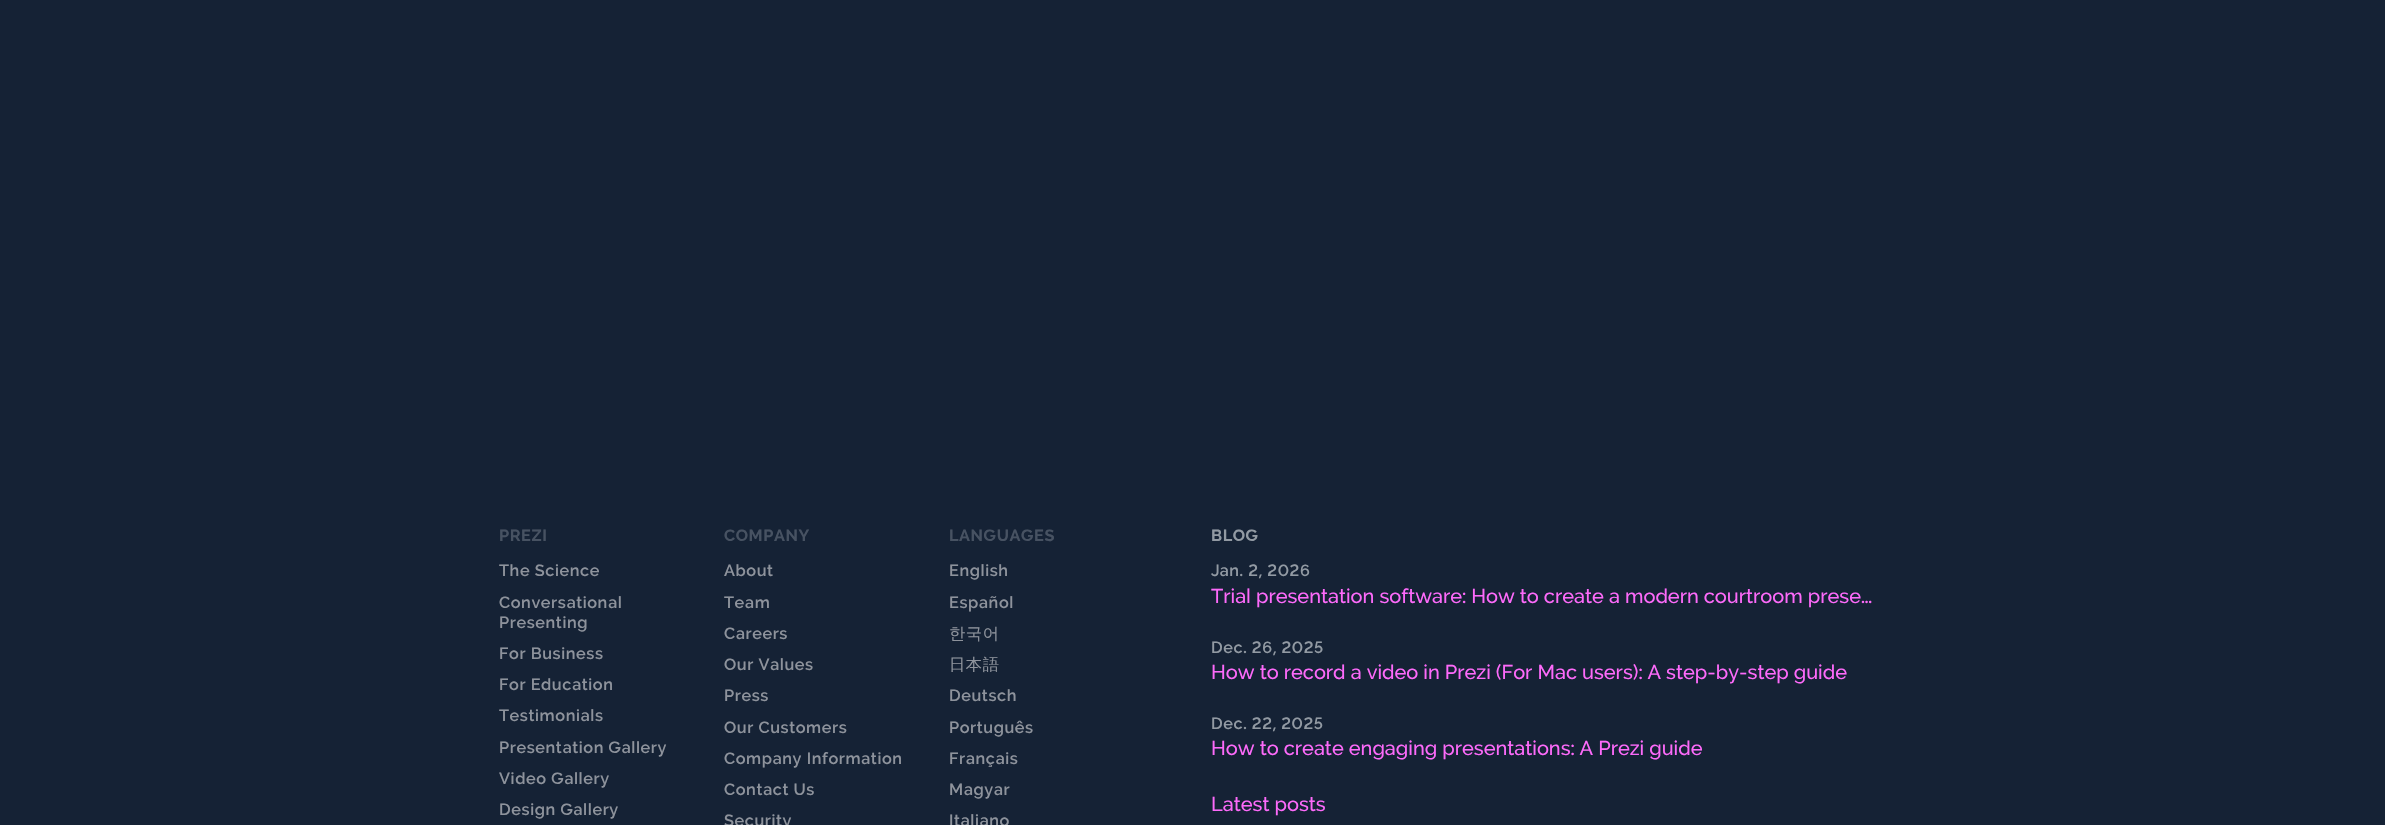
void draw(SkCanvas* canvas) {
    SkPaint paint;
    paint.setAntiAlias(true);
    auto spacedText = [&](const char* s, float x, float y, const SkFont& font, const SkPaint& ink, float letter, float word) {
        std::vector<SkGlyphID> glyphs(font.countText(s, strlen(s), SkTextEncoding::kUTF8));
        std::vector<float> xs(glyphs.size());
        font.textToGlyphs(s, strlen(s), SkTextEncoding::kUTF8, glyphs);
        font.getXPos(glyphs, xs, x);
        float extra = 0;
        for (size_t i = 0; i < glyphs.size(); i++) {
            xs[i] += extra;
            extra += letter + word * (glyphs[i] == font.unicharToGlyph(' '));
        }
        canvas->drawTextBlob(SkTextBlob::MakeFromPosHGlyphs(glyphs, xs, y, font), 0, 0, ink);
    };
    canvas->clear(0xFF152235);
    SkFont font1(fontMgr->matchFamilyStyle("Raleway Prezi", SkFontStyle::Bold()), 16.25f);
    font1.setSubpixel(true);
    paint.setColor(0xFF475262);
    spacedText("PREZI", 499, 541, font1, paint, 0.6f, 0);
    SkFont font2(fontMgr->matchFamilyStyle("Raleway Prezi", SkFontStyle(600, SkFontStyle::kNormal_Width, SkFontStyle::kUpright_Slant)), 16.25f);
    font2.setSubpixel(true);
    paint.setColor(0xFF8E939C);
    spacedText("The Science", 499, 576, font2, paint, 0.6f, 0);
    spacedText("Conversational", 499, 608, font2, paint, 0.6f, 0);
    spacedText("Presenting", 499, 628, font2, paint, 0.6f, 0);
    spacedText("For Business", 499, 659, font2, paint, 0.6f, 0);
    spacedText("For Education", 499, 690, font2, paint, 0.6f, 0);
    spacedText("Testimonials", 499, 721, font2, paint, 0.6f, 0);
    spacedText("Presentation Gallery", 499, 753, font2, paint, 0.6f, 0);
    spacedText("Video Gallery", 499, 784, font2, paint, 0.6f, 0);
    spacedText("Design Gallery", 499, 815, font2, paint, 0.6f, 0);
    paint.setColor(0xFF475262);
    spacedText("COMPANY", 724, 541, font1, paint, 0.6f, 0);
    paint.setColor(0xFF8E939C);
    spacedText("About", 724, 576, font2, paint, 0.6f, 0);
    spacedText("Team", 724, 608, font2, paint, 0.6f, 0);
    spacedText("Careers", 724, 639, font2, paint, 0.6f, 0);
    spacedText("Our Values", 724, 670, font2, paint, 0.6f, 0);
    spacedText("Press", 724, 701, font2, paint, 0.6f, 0);
    spacedText("Our Customers", 724, 733, font2, paint, 0.6f, 0);
    spacedText("Company Information", 724, 764, font2, paint, 0.6f, 0);
    spacedText("Contact Us", 724, 795, font2, paint, 0.6f, 0);
    spacedText("Security", 724, 826, font2, paint, 0.6f, 0);
    paint.setColor(0xFF475262);
    spacedText("LANGUAGES", 949, 541, font1, paint, 0.6f, 0);
    paint.setColor(0xFF8E939C);
    spacedText("English", 949, 576, font2, paint, 0.6f, 0);
    spacedText("Español", 949, 608, font2, paint, 0.6f, 0);
    SkFont font3(fontMgr->matchFamilyStyle("WenQuanYi Zen Hei", SkFontStyle(500, SkFontStyle::kNormal_Width, SkFontStyle::kUpright_Slant)), 16.25f);
    font3.setSubpixel(true);
    spacedText("한국어", 949, 639, font3, paint, 0.6f, 0);
    spacedText("日本語", 949, 670, font3, paint, 0.6f, 0);
    spacedText("Deutsch", 949, 701, font2, paint, 0.6f, 0);
    spacedText("Português", 949, 733, font2, paint, 0.6f, 0);
    spacedText("Français", 949, 764, font2, paint, 0.6f, 0);
    spacedText("Magyar", 949, 795, font2, paint, 0.6f, 0);
    spacedText("Italiano", 949, 826, font2, paint, 0.6f, 0);
    paint.setColor(0xFF929AA3);
    spacedText("BLOG", 1211, 541, font1, paint, 0.6f, 0);
    spacedText("Jan. 2, 2026", 1211, 576, font2, paint, 0.6f, 0);
    SkFont font4(fontMgr->matchFamilyStyle("Raleway Prezi", SkFontStyle(500, SkFontStyle::kNormal_Width, SkFontStyle::kUpright_Slant)), 20);
    font4.setSubpixel(true);
    paint.setColor(0xFFFD6AFA);
    canvas->drawString("Trial presentation software: How to create a modern courtroom prese…", 1211, 603, font4, paint);
    paint.setColor(0xFF929AA3);
    spacedText("Dec. 26, 2025", 1211, 653, font2, paint, 0.6f, 0);
    paint.setColor(0xFFFD6AFA);
    canvas->drawString("How to record a video in Prezi (For Mac users): A step-by-step guide", 1211, 679, font4, paint);
    paint.setColor(0xFF929AA3);
    spacedText("Dec. 22, 2025", 1211, 729, font2, paint, 0.6f, 0);
    paint.setColor(0xFFFD6AFA);
    canvas->drawString("How to create engaging presentations: A Prezi guide", 1211, 755, font4, paint);
    canvas->drawString("Latest posts", 1211, 811, font4, paint);
}
